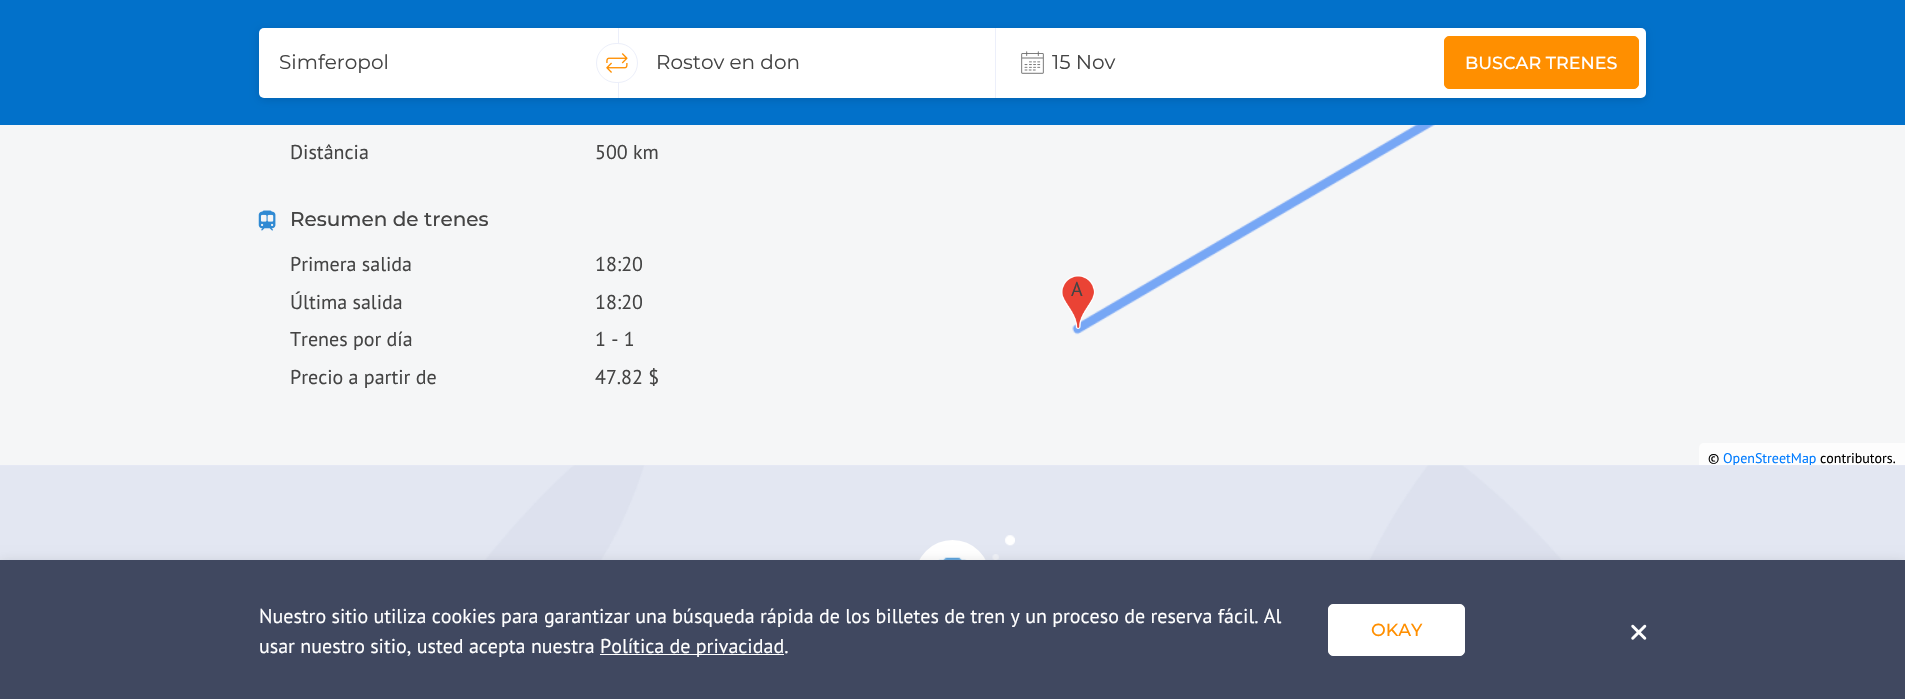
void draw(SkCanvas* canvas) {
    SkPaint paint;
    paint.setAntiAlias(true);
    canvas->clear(0xFFECEFFA);
    paint.setColor(0xFF0271CA);
    canvas->drawRect(SkRect::MakeXYWH(0, 0, 1905, 125), paint);
    paint.setColor(0x1F000000);
    paint.setMaskFilter(SkMaskFilter::MakeBlur(kNormal_SkBlurStyle, 4));
    canvas->drawRoundRect(SkRect::MakeXYWH(259, 30, 1387, 70), 5, 5, paint);
    paint.setMaskFilter(nullptr);
    paint.setColor(0xFFFFFFFF);
    canvas->drawRoundRect(SkRect::MakeXYWH(259, 28, 1387, 70), 5, 5, paint);
    SkFont font1(fontMgr->matchFamilyStyle("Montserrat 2", SkFontStyle(100, SkFontStyle::kNormal_Width, SkFontStyle::kUpright_Slant)), 20);
    font1.setSubpixel(true);
    paint.setColor(0xFF444444);
    canvas->drawString("Simferopol", 279, 69, font1, paint);
    paint.setColor(0xFFECEFFA);
    canvas->drawRect(SkRect::MakeXYWH(618, 28, 1, 70), paint);
    paint.setColor(0xFFFFFFFF);
    canvas->drawRoundRect(SkRect::MakeXYWH(596.5f, 43.5f, 41, 39), 19.5f, 19.5f, paint);
    paint.setStyle(SkPaint::kStroke_Style);
    paint.setStrokeWidth(1);
    paint.setColor(0xFFECEFFA);
    canvas->drawRoundRect(SkRect::MakeXYWH(596.5f, 43.5f, 41, 39), 19.5f, 19.5f, paint);
    canvas->drawImageRect(SkImages::DeferredFromEncodedData(SkData::MakeFromFileName("img1.png")), SkRect::MakeXYWH(606, 53, 22, 20), SkSamplingOptions());
    paint.setStyle(SkPaint::kFill_Style);
    paint.setColor(0xFF444444);
    canvas->drawString("Rostov en don", 656, 69, font1, paint);
    canvas->drawImageRect(SkImages::DeferredFromEncodedData(SkData::MakeFromFileName("img2.png")), SkRect::MakeXYWH(1021, 51, 23, 23), SkSamplingOptions());
    paint.setColor(0xFFECEFFA);
    canvas->drawRect(SkRect::MakeXYWH(995, 28, 1, 70), paint);
    paint.setColor(0xFF444444);
    canvas->drawString("15 Nov", 1052, 69, font1, paint);
    paint.setColor(0xFFFF8F00);
    canvas->drawRoundRect(SkRect::MakeXYWH(1444.5f, 36.5f, 194, 52), 4.5f, 4.5f, paint);
    paint.setStyle(SkPaint::kStroke_Style);
    canvas->drawRoundRect(SkRect::MakeXYWH(1444.5f, 36.5f, 194, 52), 4.5f, 4.5f, paint);
    SkFont font2(fontMgr->matchFamilyStyle("Montserrat", SkFontStyle(100, SkFontStyle::kNormal_Width, SkFontStyle::kUpright_Slant)), 17.5f);
    font2.setSubpixel(true);
    paint.setStyle(SkPaint::kFill_Style);
    paint.setColor(0xFFFFFFFF);
    canvas->drawString("BUSCAR TRENES", 1465, 69, font2, paint);
    paint.setColor(0xFFF5F6F7);
    canvas->drawRect(SkRect::MakeXYWH(0, 125, 1905, 340), paint);
    SkFont font3(fontMgr->matchFamilyStyle("PT Sans", SkFontStyle::Normal()), 20);
    font3.setSubpixel(true);
    paint.setColor(0xFF444444);
    canvas->drawString("Distância", 290, 159, font3, paint);
    canvas->drawString("500 km", 595, 159, font3, paint);
    canvas->drawImageRect(SkImages::DeferredFromEncodedData(SkData::MakeFromFileName("img3.png")), SkRect::MakeXYWH(258, 210, 18, 21), SkSamplingOptions());
    SkFont font4(fontMgr->matchFamilyStyle("Montserrat", SkFontStyle(100, SkFontStyle::kNormal_Width, SkFontStyle::kUpright_Slant)), 20);
    font4.setSubpixel(true);
    canvas->drawString("Resumen de trenes", 290, 226, font4, paint);
    canvas->drawString("Primera salida", 290, 271, font3, paint);
    canvas->drawString("18:20", 595, 271, font3, paint);
    canvas->drawString("Última salida", 290, 309, font3, paint);
    canvas->drawString("18:20", 595, 309, font3, paint);
    canvas->drawString("Trenes por día", 290, 346, font3, paint);
    canvas->drawString("1 - 1", 595, 346, font3, paint);
    canvas->drawString("Precio a partir de", 290, 384, font3, paint);
    canvas->drawString("47.82 $", 595, 384, font3, paint);
    canvas->drawImageRect(SkImages::DeferredFromEncodedData(SkData::MakeFromFileName("img4.png")), SkRect::MakeXYWH(1072, 125, 363, 210), SkSamplingOptions());
    canvas->drawImageRect(SkImages::DeferredFromEncodedData(SkData::MakeFromFileName("img5.png")), SkRect::MakeXYWH(1061, 275, 34, 54), SkSamplingOptions());
    canvas->drawString("A", 1071, 296, font3, paint);
    paint.setColor(0xFFFDFDFD);
    canvas->drawPath(SkPathBuilder().moveTo(1704, 443).lineTo(1905, 443).lineTo(1905, 465).lineTo(1699, 465).lineTo(1699, 448).cubicTo(1699, 445, 1701, 443, 1704, 443).close().detach(), paint);
    SkFont font5(fontMgr->matchFamilyStyle("PT Sans", SkFontStyle::Normal()), 14);
    font5.setSubpixel(true);
    paint.setColor(0xFF000000);
    canvas->drawString("©", 1708, 463, font5, paint);
    canvas->save();
    canvas->clipRect(SkRect::MakeXYWH(953, 0, 952, 465));
    paint.setColor(0xFF007BFF);
    canvas->drawString("OpenStreetMap", 1723, 463, font5, paint);
    canvas->restore();
    paint.setColor(0xFF000000);
    canvas->drawString("contributors.", 1820, 463, font5, paint);
    canvas->drawImageRect(SkImages::DeferredFromEncodedData(SkData::MakeFromFileName("img6.png")), SkRect::MakeXYWH(0, 465, 1905, 95), SkSamplingOptions());
    paint.setColor(0xFFFFFFFF);
    canvas->drawCircle(952.5f, 577.5f, 37.5f, paint);
    canvas->drawImageRect(SkImages::DeferredFromEncodedData(SkData::MakeFromFileName("img7.png")), SkRect::MakeXYWH(938, 557, 29, 3), SkSamplingOptions());
    canvas->drawImageRect(SkImages::DeferredFromEncodedData(SkData::MakeFromFileName("img8.png")), SkRect::MakeXYWH(992, 535, 23, 25), SkSamplingOptions());
    paint.setColor(0x29000000);
    paint.setMaskFilter(SkMaskFilter::MakeBlur(kNormal_SkBlurStyle, 6));
    canvas->drawRect(SkRect::MakeXYWH(0, 563, 1905, 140), paint);
    paint.setMaskFilter(nullptr);
    paint.setColor(0xFF404860);
    canvas->drawRect(SkRect::MakeXYWH(0, 560, 1905, 139), paint);
    paint.setColor(0xFFFFFFFF);
    canvas->drawString("Nuestro sitio utiliza cookies para garantizar una búsqueda rápida de los billetes de tren y un proceso de reserva fácil. Al", 259, 623, font3, paint);
    canvas->drawString("usar nuestro sitio, usted acepta nuestra", 259, 653, font3, paint);
    canvas->drawRect(SkRect::MakeXYWH(600, 654, 184, 1), paint);
    canvas->drawString("Política de privacidad.", 600, 653, font3, paint);
    canvas->drawRoundRect(SkRect::MakeXYWH(1328.5f, 604.5f, 136, 51), 4.5f, 4.5f, paint);
    paint.setStyle(SkPaint::kStroke_Style);
    canvas->drawRoundRect(SkRect::MakeXYWH(1328.5f, 604.5f, 136, 51), 4.5f, 4.5f, paint);
    paint.setStyle(SkPaint::kFill_Style);
    paint.setColor(0xFFFF8F00);
    canvas->drawString("OKAY", 1371, 636, font2, paint);
    canvas->drawImageRect(SkImages::DeferredFromEncodedData(SkData::MakeFromFileName("img9.png")), SkRect::MakeXYWH(1631, 624, 16, 16), SkSamplingOptions());
}
